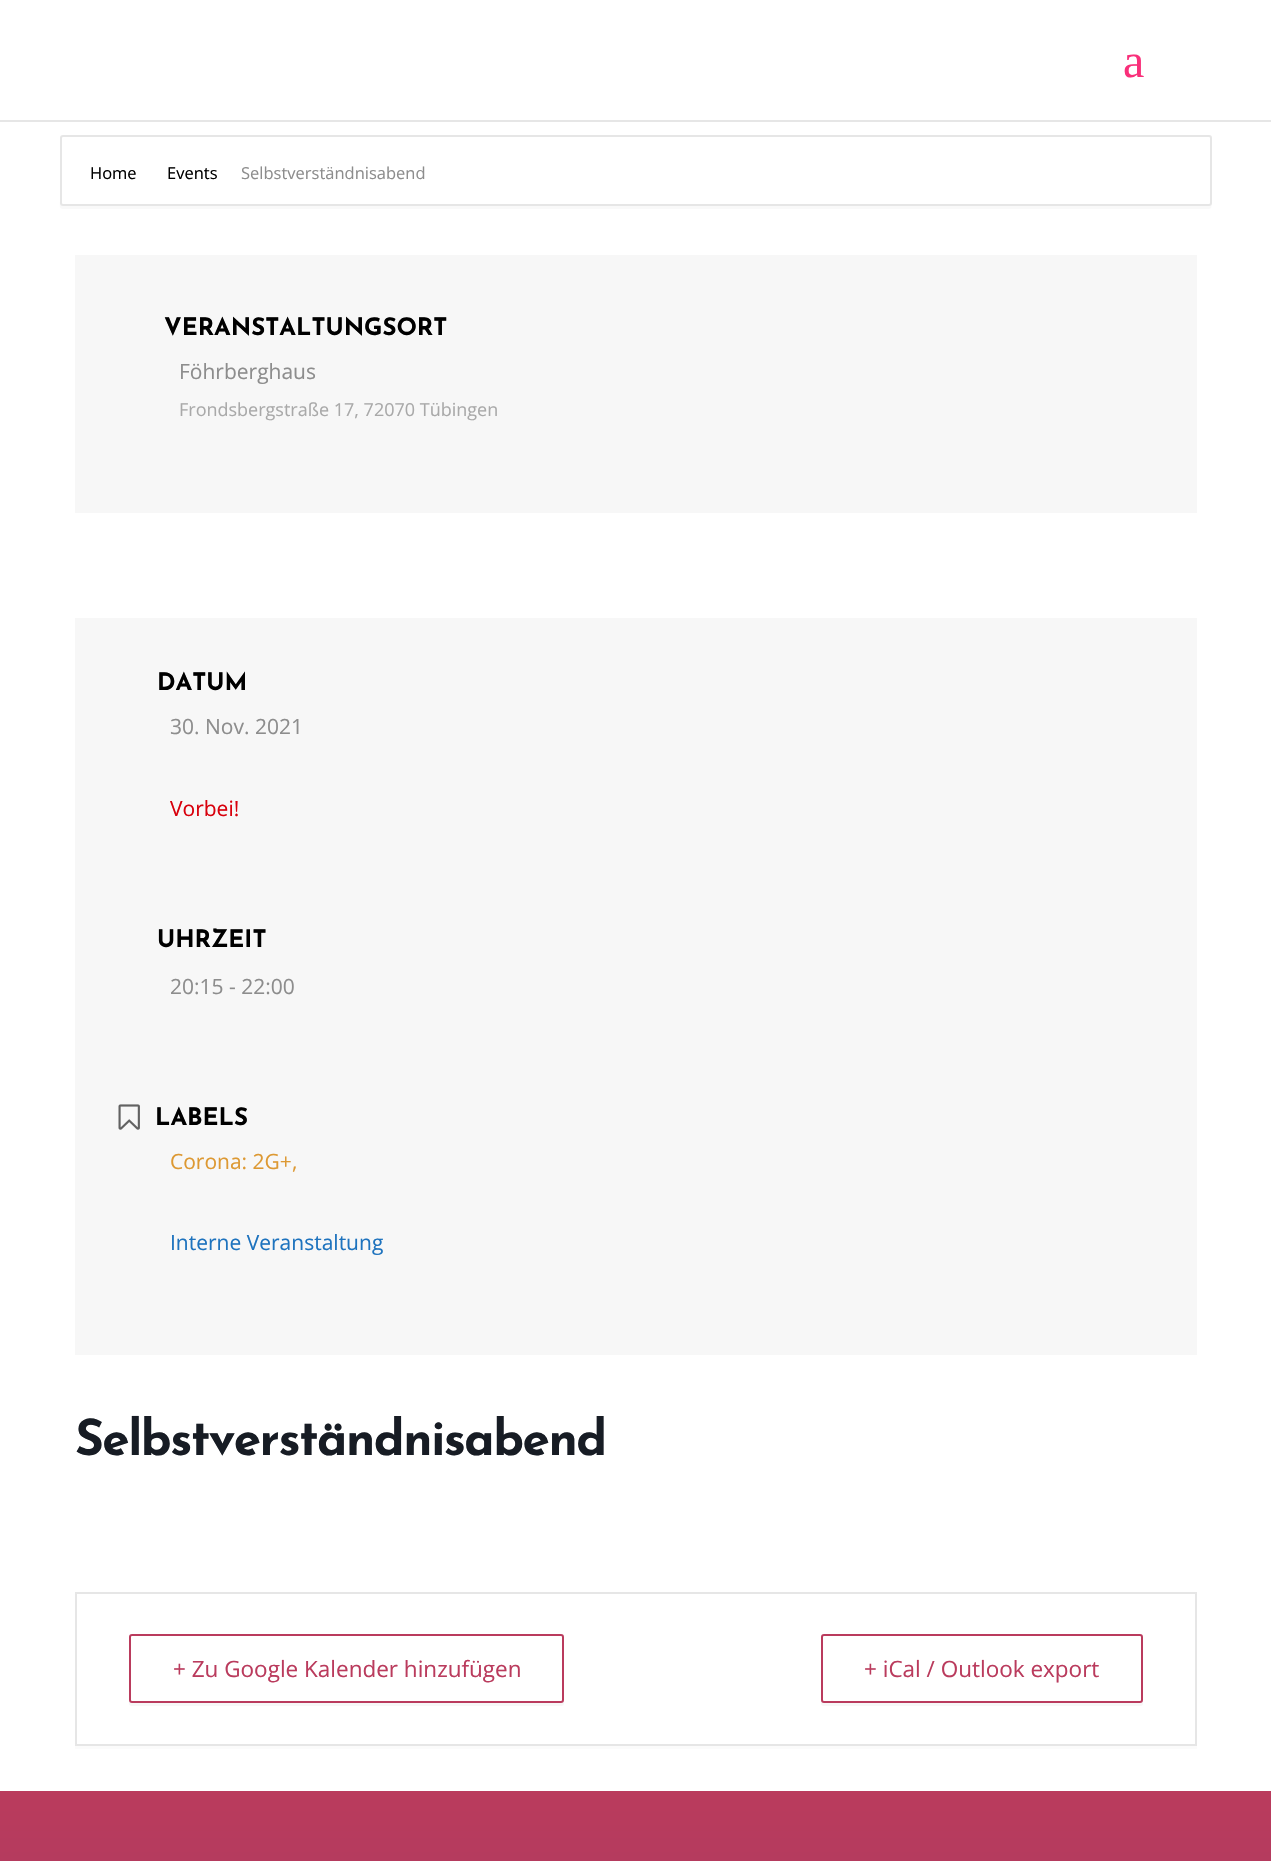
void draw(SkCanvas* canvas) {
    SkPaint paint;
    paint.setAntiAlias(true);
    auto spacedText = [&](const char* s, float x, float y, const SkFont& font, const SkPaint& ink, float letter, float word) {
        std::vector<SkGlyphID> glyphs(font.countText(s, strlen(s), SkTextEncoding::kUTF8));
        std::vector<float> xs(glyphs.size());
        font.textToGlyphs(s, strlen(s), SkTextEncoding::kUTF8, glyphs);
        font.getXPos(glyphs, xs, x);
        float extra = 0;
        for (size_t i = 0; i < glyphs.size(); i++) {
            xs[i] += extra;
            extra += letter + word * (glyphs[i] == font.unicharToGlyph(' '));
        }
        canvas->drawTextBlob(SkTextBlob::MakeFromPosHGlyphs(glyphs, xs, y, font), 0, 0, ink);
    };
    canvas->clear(0xFFFFFFFF);
    paint.setColor(0xFFE6E6E6);
    canvas->drawRect(SkRect::MakeXYWH(0, 120, 1271, 2), paint);
    SkFont font1(fontMgr->matchFamilyStyle("Liberation Serif", SkFontStyle::Normal()), 48);
    font1.setSubpixel(true);
    paint.setColor(0xFFF92F7A);
    canvas->drawString("a", 1123, 77, font1, paint);
    paint.setColor(0xFFF9F9F9);
    canvas->drawPath(SkPathBuilder().moveTo(60, 202).cubicTo(60, 205, 59, 209, 63, 209).lineTo(1209, 209).lineTo(1211, 208).lineTo(1212, 202).cubicTo(1212, 204, 1211, 206, 1209, 206).lineTo(63, 206).cubicTo(61, 206, 60, 204, 60, 202).close().detach(), paint);
    paint.setStyle(SkPaint::kStroke_Style);
    paint.setStrokeWidth(2);
    paint.setColor(0xFFE6E6E6);
    canvas->drawRoundRect(SkRect::MakeXYWH(61, 136, 1150, 69), 2, 2, paint);
    SkFont font2(fontMgr->matchFamilyStyle("Open Sans", SkFontStyle::Normal()), 16.5f);
    font2.setSubpixel(true);
    paint.setStyle(SkPaint::kFill_Style);
    paint.setColor(0xFF000000);
    canvas->drawString("Home", 90, 179, font2, paint);
    canvas->drawString("Events", 167, 179, font2, paint);
    paint.setColor(0xFF8D8D8D);
    canvas->drawString("Selbstverständnisabend", 241, 179, font2, paint);
    paint.setColor(0xFFF7F7F7);
    canvas->drawRect(SkRect::MakeXYWH(75, 255, 1122, 258), paint);
    SkFont font3(fontMgr->matchFamilyStyle("Josefin Sans", SkFontStyle::Bold()), 24);
    font3.setSubpixel(true);
    paint.setColor(0xFF000000);
    canvas->drawString("VERANSTALTUNGSORT", 164, 335, font3, paint);
    SkFont font4(fontMgr->matchFamilyStyle("Open Sans", SkFontStyle::Normal()), 21);
    font4.setSubpixel(true);
    paint.setColor(0xFF8D8D8D);
    canvas->drawString("Föhrberghaus", 179, 379, font4, paint);
    SkFont font5(fontMgr->matchFamilyStyle("Open Sans", SkFontStyle::Normal()), 18);
    font5.setSubpixel(true);
    paint.setColor(0xFFA9A9A9);
    canvas->drawString("Frondsbergstraße 17, 72070 Tübingen", 179, 416, font5, paint);
    paint.setColor(0xFFF7F7F7);
    canvas->drawRect(SkRect::MakeXYWH(75, 618, 1122, 737), paint);
    paint.setColor(0xFF000000);
    canvas->drawString("DATUM", 157, 690, font3, paint);
    paint.setColor(0xFF8D8D8D);
    canvas->drawString("30. Nov. 2021", 170, 734, font4, paint);
    paint.setColor(0xFFD8000C);
    canvas->drawString("Vorbei!", 170, 816, font4, paint);
    paint.setColor(0xFF000000);
    canvas->drawString("UHRZEIT", 157, 947, font3, paint);
    paint.setColor(0xFF8D8D8D);
    canvas->drawString("20:15 - 22:00", 170, 994, font4, paint);
    canvas->drawImageRect(SkImages::DeferredFromEncodedData(SkData::MakeFromFileName("img1.png")), SkRect::MakeXYWH(118, 1104, 22, 26), SkSamplingOptions());
    paint.setColor(0xFF000000);
    canvas->drawString("LABELS", 155, 1125, font3, paint);
    paint.setColor(0xFFDD9933);
    canvas->drawString("Corona: 2G+,", 170, 1169, font4, paint);
    paint.setColor(0xFF1E73BE);
    canvas->drawString("Interne Veranstaltung", 170, 1250, font4, paint);
    SkFont font6(fontMgr->matchFamilyStyle("Josefin Sans", SkFontStyle::Bold()), 49.5f);
    font6.setSubpixel(true);
    paint.setColor(0xFF171C24);
    spacedText("Selbstverständnisabend", 75, 1455, font6, paint, -1.5f, 0);
    paint.setColor(0xFFFBFBFB);
    canvas->drawRect(SkRect::MakeXYWH(75, 1746, 1122, 3), paint);
    paint.setStyle(SkPaint::kStroke_Style);
    paint.setColor(0xFFE6E6E6);
    canvas->drawRect(SkRect::MakeXYWH(76, 1593, 1120, 152), paint);
    paint.setStyle(SkPaint::kFill_Style);
    paint.setColor(0xFFF7F7F7);
    canvas->drawPath(SkPathBuilder().moveTo(129, 1700).cubicTo(129, 1702, 128, 1706, 132, 1706).lineTo(561, 1706).cubicTo(565, 1706, 564, 1702, 564, 1700).cubicTo(564, 1701, 563, 1702, 561, 1702).lineTo(132, 1702).cubicTo(130, 1702, 129, 1701, 129, 1700).close().detach(), paint);
    paint.setColor(0xFFFFFFFF);
    canvas->drawRoundRect(SkRect::MakeXYWH(130, 1635, 433, 67), 2, 2, paint);
    paint.setStyle(SkPaint::kStroke_Style);
    paint.setColor(0xFFBA3B5D);
    canvas->drawRoundRect(SkRect::MakeXYWH(130, 1635, 433, 67), 2, 2, paint);
    SkFont font7(fontMgr->matchFamilyStyle("Open Sans", SkFontStyle::Normal()), 22.5f);
    font7.setSubpixel(true);
    paint.setStyle(SkPaint::kFill_Style);
    canvas->drawString("+ Zu Google Kalender hinzufügen", 173, 1677, font7, paint);
    paint.setColor(0xFFF7F7F7);
    canvas->drawPath(SkPathBuilder().moveTo(821, 1701).lineTo(821, 1703).cubicTo(821, 1705, 822, 1706, 824, 1706).lineTo(1140, 1706).cubicTo(1142, 1706, 1143, 1705, 1143, 1703).lineTo(1143, 1700).cubicTo(1143, 1701, 1142, 1702, 1140, 1702).lineTo(824, 1702).cubicTo(822, 1702, 822, 1702, 821, 1701).close().detach(), paint);
    paint.setColor(0xFFFFFFFF);
    canvas->drawRoundRect(SkRect::MakeXYWH(822, 1635, 320, 67), 2, 2, paint);
    paint.setStyle(SkPaint::kStroke_Style);
    paint.setColor(0xFFBA3B5D);
    canvas->drawRoundRect(SkRect::MakeXYWH(822, 1635, 320, 67), 2, 2, paint);
    paint.setStyle(SkPaint::kFill_Style);
    canvas->drawString("+ iCal / Outlook export", 864, 1677, font7, paint);
    {
        const SkColor colors[] = {0xFFBA3B5D, 0xFF434671};
        const float stops[] = {0, 1};
        const SkPoint ends[] = {{636, 1791}, {636, 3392}};
        paint.setShader(SkGradientShader::MakeLinear(ends, colors, stops, 2, SkTileMode::kClamp));
        paint.setAlpha(255);
    }
    canvas->drawRect(SkRect::MakeXYWH(0, 1791, 1271, 70), paint);
}
